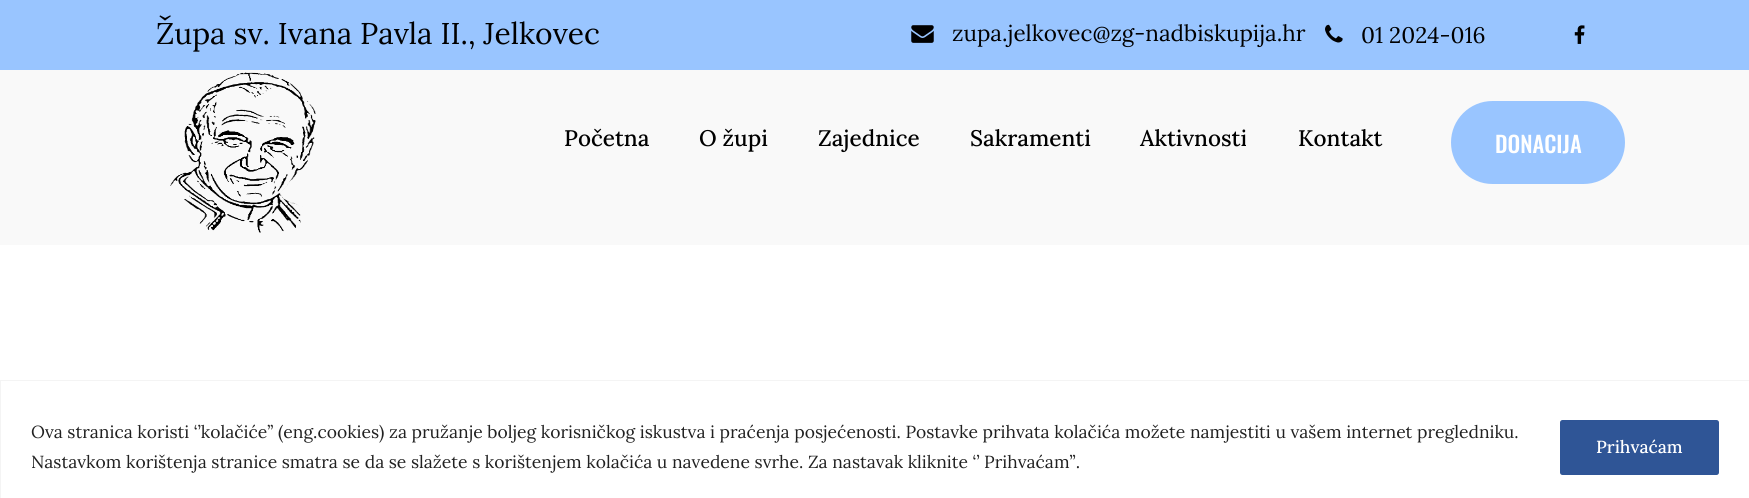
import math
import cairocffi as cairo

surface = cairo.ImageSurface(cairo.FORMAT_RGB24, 1749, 498)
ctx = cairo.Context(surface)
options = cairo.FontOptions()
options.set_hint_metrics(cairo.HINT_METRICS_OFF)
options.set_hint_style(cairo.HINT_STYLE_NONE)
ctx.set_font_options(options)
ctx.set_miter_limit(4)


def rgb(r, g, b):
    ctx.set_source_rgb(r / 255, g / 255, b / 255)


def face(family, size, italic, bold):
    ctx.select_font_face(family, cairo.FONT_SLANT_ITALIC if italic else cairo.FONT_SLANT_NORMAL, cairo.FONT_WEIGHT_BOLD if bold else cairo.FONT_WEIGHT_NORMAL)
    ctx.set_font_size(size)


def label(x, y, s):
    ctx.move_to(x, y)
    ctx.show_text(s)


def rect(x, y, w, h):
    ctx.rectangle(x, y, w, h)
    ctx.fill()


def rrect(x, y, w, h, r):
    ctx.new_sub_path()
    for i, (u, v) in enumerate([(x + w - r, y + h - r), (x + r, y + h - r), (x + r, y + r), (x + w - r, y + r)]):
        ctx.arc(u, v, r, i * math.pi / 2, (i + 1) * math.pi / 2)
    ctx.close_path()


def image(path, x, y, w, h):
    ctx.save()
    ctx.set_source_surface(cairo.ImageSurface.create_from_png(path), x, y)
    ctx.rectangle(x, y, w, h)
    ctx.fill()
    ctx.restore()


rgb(255, 255, 255)
ctx.paint()
rgb(153, 197, 255)
rect(0, 0, 1749, 70)
face('Lora', 30, 0, 0)
rgb(0, 0, 0)
label(156, 44, 'Župa sv. Ivana Pavla II., Jelkovec')
image('image0.png', 911, 25, 23, 18)
face('Lora', 22.5, 0, 0)
label(952, 41, 'zupa.jelkovec@zg-nadbiskupija.hr')
image('image1.png', 1325, 24, 18, 19)
label(1361, 43, '01 2024-016')
image('image2.png', 1574, 25, 11, 19)
rgb(249, 249, 249)
rect(0, 70, 1749, 175)
image('image3.png', 170, 72, 146, 161)
face('Lora Medium', 22.5, 0, 0)
rgb(0, 0, 0)
label(564, 146, 'Početna')
label(699, 146, 'O župi')
label(818, 146, 'Zajednice')
label(970, 146, 'Sakramenti')
label(1140, 146, 'Aktivnosti')
label(1298, 146, 'Kontakt')
rgb(153, 197, 255)
rrect(1451, 101, 174, 83, 41.5)
ctx.fill()
face('Oswald Medium', 22.5, 0, 0)
rgb(255, 255, 255)
label(1495, 153, 'DONACIJA')
ctx.rectangle(0.5, 380.5, 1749, 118)
rgb(244, 244, 244)
ctx.set_line_width(1)
ctx.stroke()
face('Lora', 17.5, 0, 0)
rgb(33, 33, 33)
label(31, 438, 'Ova stranica koristi ‘’kolačiće’’ (eng.cookies) za pružanje boljeg korisničkog iskustva i praćenja posjećenosti. Postavke prihvata kolačića možete namjestiti u vašem internet pregledniku.')
label(31, 468, 'Nastavkom korištenja stranice smatra se da se slažete s korištenjem kolačića u navedene svrhe. Za nastavak kliknite ‘’ Prihvaćam’’.')
rgb(47, 85, 150)
rrect(1561.5, 421.5, 156, 52, 1)
ctx.fill_preserve()
ctx.set_line_width(3)
ctx.stroke()
face('Lora Medium', 17.5, 0, 0)
rgb(255, 255, 255)
label(1596, 453, 'Prihvaćam')
surface.write_to_png('render.png')
